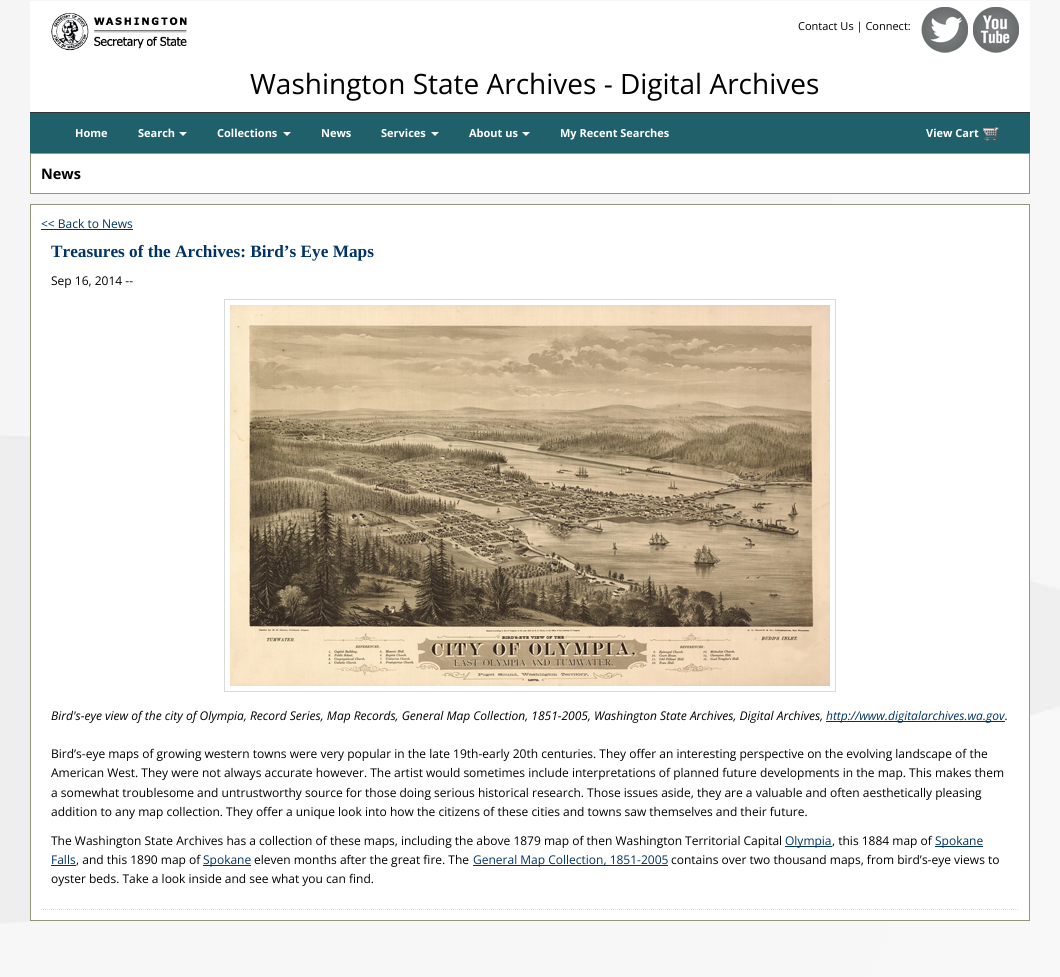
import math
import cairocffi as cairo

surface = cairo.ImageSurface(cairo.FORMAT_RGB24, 1060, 977)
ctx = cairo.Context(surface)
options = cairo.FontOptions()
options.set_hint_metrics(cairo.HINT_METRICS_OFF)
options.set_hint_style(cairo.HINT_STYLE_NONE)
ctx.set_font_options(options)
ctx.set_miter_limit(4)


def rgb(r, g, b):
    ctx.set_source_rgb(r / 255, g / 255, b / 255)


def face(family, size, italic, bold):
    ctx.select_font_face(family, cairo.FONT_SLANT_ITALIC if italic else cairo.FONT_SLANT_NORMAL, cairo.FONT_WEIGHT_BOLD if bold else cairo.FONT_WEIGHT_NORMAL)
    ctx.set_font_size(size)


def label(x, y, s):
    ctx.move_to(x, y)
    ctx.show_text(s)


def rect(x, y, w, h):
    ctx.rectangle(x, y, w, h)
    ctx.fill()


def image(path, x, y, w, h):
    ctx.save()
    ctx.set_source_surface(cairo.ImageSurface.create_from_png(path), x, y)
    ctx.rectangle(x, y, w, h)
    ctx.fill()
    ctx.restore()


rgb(255, 255, 255)
ctx.paint()
image('image0.png', 0, 0, 1060, 977)
rgb(255, 255, 255)
rect(30, 1, 1000, 111)
image('image1.png', 51, 13, 136, 38)
face('Open Sans', 11, 0, 0)
rgb(0, 0, 0)
label(798, 30, 'Contact Us | Connect:')
image('image2.png', 921, 7, 47, 46)
image('image3.png', 973, 7, 46, 46)
rgb(51, 51, 51)
rect(30, 112, 1000, 1)
face('Open Sans', 28, 0, 0)
rgb(0, 0, 0)
label(250, 94, 'Washington State Archives - Digital Archives')
rgb(32, 96, 107)
rect(30, 113, 1000, 40)
face('Open Sans', 11, 0, 1)
rgb(255, 255, 255)
label(75, 137, 'Home')
label(138, 137, 'Search')
ctx.new_path()
ctx.move_to(179, 132)
ctx.line_to(187, 132)
ctx.line_to(183, 136)
ctx.close_path()
ctx.fill()
label(217, 137, 'Collections')
ctx.new_path()
ctx.move_to(283, 132)
ctx.line_to(291, 132)
ctx.line_to(287, 136)
ctx.close_path()
ctx.fill()
label(321, 137, 'News')
label(381, 137, 'Services')
ctx.new_path()
ctx.move_to(431, 132)
ctx.line_to(439, 132)
ctx.line_to(435, 136)
ctx.close_path()
ctx.fill()
label(469, 137, 'About us')
ctx.new_path()
ctx.move_to(522, 132)
ctx.line_to(530, 132)
ctx.line_to(526, 136)
ctx.close_path()
ctx.fill()
label(560, 137, 'My Recent Searches')
label(926, 137, 'View Cart')
image('image4.png', 983, 127, 16, 14)
ctx.rectangle(30.5, 153.5, 999, 40)
ctx.fill_preserve()
rgb(149, 149, 124)
ctx.set_line_width(1)
ctx.stroke()
face('Open Sans', 14.5, 0, 1)
rgb(0, 0, 0)
label(41, 179, 'News')
rgb(255, 255, 255)
ctx.rectangle(30.5, 204.5, 999, 716)
ctx.fill_preserve()
rgb(149, 149, 124)
ctx.stroke()
face('Open Sans', 12, 0, 0)
rgb(0, 51, 102)
label(41, 228, '<< Back to News')
rect(41, 229, 92, 1)
ctx.new_path()
ctx.move_to(41, 909.5)
ctx.line_to(1019, 909.5)
rgb(219, 219, 219)
ctx.set_dash([1, 1])
ctx.stroke()
face('Liberation Serif', 17.25, 0, 1)
rgb(0, 51, 102)
label(51, 257, 'Treasures of the Archives: Bird’s Eye Maps')
face('Open Sans', 12, 0, 0)
rgb(0, 0, 0)
label(51, 285, 'Sep 16, 2014 --')
ctx.rectangle(224.5, 299.5, 611, 392)
rgb(218, 218, 218)
ctx.set_dash([])
ctx.stroke()
image('image5.png', 230, 305, 600, 381)
face('Open Sans', 12, 1, 0)
rgb(0, 0, 0)
label(51, 720, 'Bird\'s-eye view of the city of Olympia, Record Series, Map Records, General Map Collection, 1851-2005, Washington State Archives, Digital Archives,')
rgb(0, 51, 102)
rect(826, 721, 179, 1)
label(826, 720, 'http://www.digitalarchives.wa.gov')
rgb(0, 0, 0)
label(1005, 720, '.')
face('Open Sans', 12, 0, 0)
label(51, 758, 'Bird’s-eye maps of growing western towns were very popular in the late 19th-early 20th centuries. They offer an interesting perspective on the evolving landscape of the')
label(51, 777, 'American West. They were not always accurate however. The artist would sometimes include interpretations of planned future developments in the map. This makes them')
label(51, 797, 'a somewhat troublesome and untrustworthy source for those doing serious historical research. Those issues aside, they are a valuable and often aesthetically pleasing')
label(51, 816, 'addition to any map collection. They offer a unique look into how the citizens of these cities and towns saw themselves and their future.')
label(51, 845, 'The Washington State Archives has a collection of these maps, including the above 1879 map of then Washington Territorial Capital')
rgb(0, 51, 102)
rect(785, 846, 47, 1)
label(785, 845, 'Olympia')
rgb(0, 0, 0)
label(832, 845, ', this 1884 map of')
rgb(0, 51, 102)
rect(935, 846, 48, 1)
label(935, 845, 'Spokane')
label(51, 864, 'Falls')
rect(51, 865, 25, 1)
rgb(0, 0, 0)
label(76, 864, ', and this 1890 map of')
rgb(0, 51, 102)
rect(203, 865, 48, 1)
label(203, 864, 'Spokane')
rgb(0, 0, 0)
label(254, 864, 'eleven months after the great fire. The')
rgb(0, 51, 102)
rect(473, 865, 195, 1)
label(473, 864, 'General Map Collection, 1851-2005')
rgb(0, 0, 0)
label(671, 864, 'contains over two thousand maps, from bird’s-eye views to')
label(51, 883, 'oyster beds. Take a look inside and see what you can find.')
surface.write_to_png('render.png')
